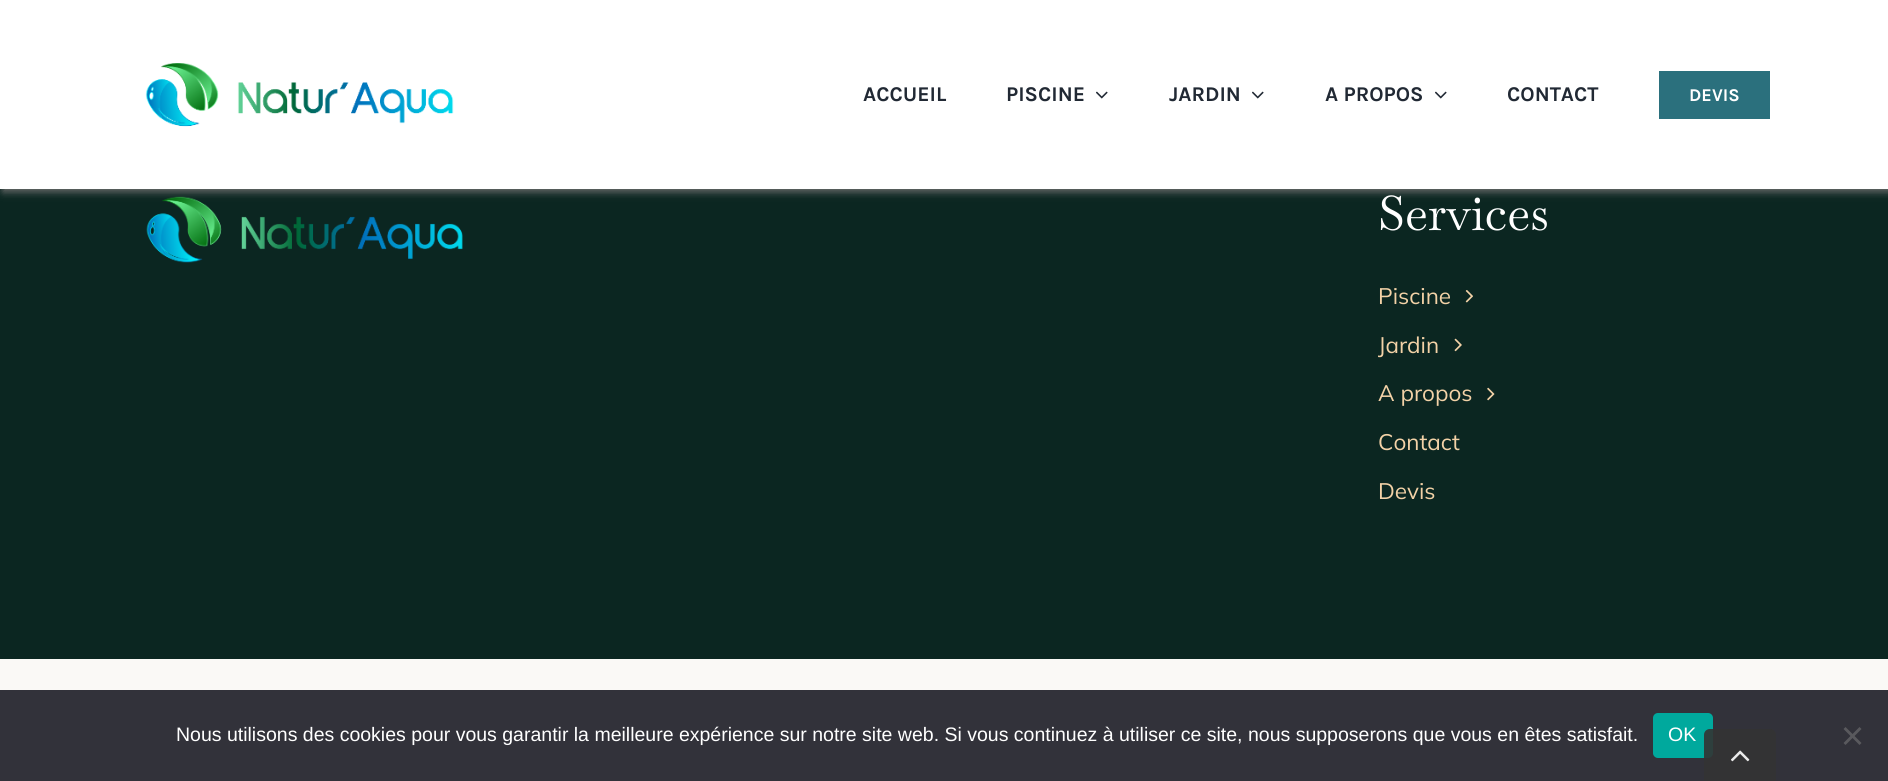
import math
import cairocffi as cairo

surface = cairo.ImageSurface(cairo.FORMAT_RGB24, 1888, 781)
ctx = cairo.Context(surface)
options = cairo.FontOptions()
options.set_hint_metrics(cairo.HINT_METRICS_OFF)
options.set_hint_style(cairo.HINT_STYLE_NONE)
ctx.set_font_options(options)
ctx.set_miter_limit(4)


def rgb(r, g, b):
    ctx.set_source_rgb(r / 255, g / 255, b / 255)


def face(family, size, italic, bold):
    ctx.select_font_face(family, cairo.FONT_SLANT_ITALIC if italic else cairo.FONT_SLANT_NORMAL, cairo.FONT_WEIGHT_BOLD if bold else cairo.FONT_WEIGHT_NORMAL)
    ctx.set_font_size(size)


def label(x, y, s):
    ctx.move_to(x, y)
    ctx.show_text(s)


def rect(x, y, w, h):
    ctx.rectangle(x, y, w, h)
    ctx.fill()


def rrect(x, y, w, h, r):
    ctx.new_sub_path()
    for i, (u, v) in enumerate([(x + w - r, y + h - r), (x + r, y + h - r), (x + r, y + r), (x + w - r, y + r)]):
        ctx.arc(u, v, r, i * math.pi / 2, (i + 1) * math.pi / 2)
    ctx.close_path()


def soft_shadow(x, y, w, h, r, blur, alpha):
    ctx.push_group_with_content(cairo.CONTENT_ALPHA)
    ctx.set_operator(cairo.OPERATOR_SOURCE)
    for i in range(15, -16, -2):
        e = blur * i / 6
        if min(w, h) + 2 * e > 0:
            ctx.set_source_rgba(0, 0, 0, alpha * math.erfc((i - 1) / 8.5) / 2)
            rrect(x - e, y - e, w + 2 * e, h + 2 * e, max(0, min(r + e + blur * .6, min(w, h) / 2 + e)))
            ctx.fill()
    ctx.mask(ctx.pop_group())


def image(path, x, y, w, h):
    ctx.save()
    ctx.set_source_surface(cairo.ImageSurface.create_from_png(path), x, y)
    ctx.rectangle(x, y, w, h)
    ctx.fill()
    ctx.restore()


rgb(11, 38, 33)
ctx.paint()
image('image2.png', 146, 196, 317, 67)
rgb(109, 109, 109)
soft_shadow(3, 3, 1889, 189, 0, 4, 1)
rgb(255, 255, 255)
rect(0, 0, 1888, 189)
image('image0.png', 145, 63, 309, 64)
face('Karla', 21, 0, 1)
rgb(33, 41, 52)
label(863, 101, 'ACCUEIL')
label(1006, 101, 'PISCINE')
image('image1.png', 1096, 91, 12, 8)
label(1169, 101, 'JARDIN')
image('image1.png', 1252, 91, 12, 8)
label(1325, 101, 'A PROPOS')
image('image1.png', 1435, 91, 12, 8)
label(1507, 101, 'CONTACT')
rgb(43, 112, 125)
rect(1659, 71, 111, 48)
face('Karla', 18, 0, 1)
rgb(255, 255, 255)
label(1689, 101, 'DEVIS')
face('Baskervville', 48, 0, 0)
label(1378, 230, 'Services')
face('Mulish', 22.5, 0, 0)
rgb(243, 210, 167)
label(1378, 304, 'Piscine')
image('image3.png', 1465, 290, 8, 13)
label(1378, 353, 'Jardin')
image('image4.png', 1454, 338, 8, 14)
label(1378, 401, 'A propos')
image('image5.png', 1487, 387, 8, 14)
label(1378, 450, 'Contact')
label(1378, 499, 'Devis')
rgb(250, 249, 246)
rect(0, 659, 1888, 31)
rgb(50, 50, 58)
rect(0, 690, 1888, 91)
face('Liberation Sans', 19.5, 0, 0)
rgb(255, 255, 255)
label(176, 741, 'Nous utilisons des cookies pour vous garantir la meilleure expérience sur notre site web. Si vous continuez à utiliser ce site, nous supposerons que vous en êtes satisfait.')
rgb(0, 169, 157)
rrect(1653, 713, 60, 45, 5)
ctx.fill()
rgb(255, 255, 255)
label(1668, 741, 'OK')
rgb(89, 89, 93)
ctx.new_path()
ctx.move_to(1859.5, 727)
ctx.line_to(1861.5, 729)
ctx.line_to(1845.5, 745)
ctx.line_to(1843.5, 743)
ctx.close_path()
ctx.fill()
ctx.new_path()
ctx.move_to(1843.5, 729)
ctx.line_to(1845.5, 727)
ctx.line_to(1861.5, 743)
ctx.line_to(1859.5, 745)
ctx.close_path()
ctx.fill()
ctx.set_source_rgba(0.2, 0.2, 0.2, 0.9)
ctx.new_path()
ctx.move_to(1710, 729)
ctx.line_to(1770, 729)
ctx.curve_to(1773.5, 729, 1776, 731.5, 1776, 735)
ctx.line_to(1776, 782)
ctx.line_to(1704, 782)
ctx.line_to(1704, 735)
ctx.curve_to(1704, 731.5, 1706.5, 729, 1710, 729)
ctx.close_path()
ctx.fill()
image('image6.png', 1731, 750, 19, 12)
surface.write_to_png('render.png')
